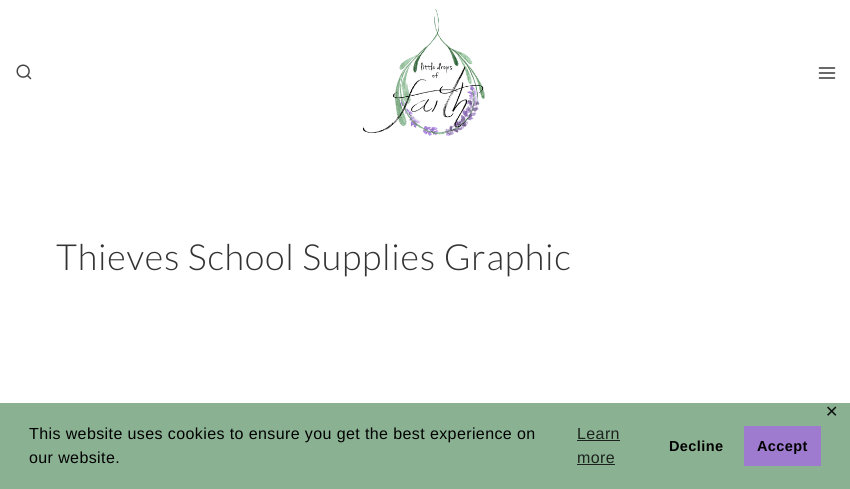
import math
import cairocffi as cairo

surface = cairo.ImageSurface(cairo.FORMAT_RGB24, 850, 489)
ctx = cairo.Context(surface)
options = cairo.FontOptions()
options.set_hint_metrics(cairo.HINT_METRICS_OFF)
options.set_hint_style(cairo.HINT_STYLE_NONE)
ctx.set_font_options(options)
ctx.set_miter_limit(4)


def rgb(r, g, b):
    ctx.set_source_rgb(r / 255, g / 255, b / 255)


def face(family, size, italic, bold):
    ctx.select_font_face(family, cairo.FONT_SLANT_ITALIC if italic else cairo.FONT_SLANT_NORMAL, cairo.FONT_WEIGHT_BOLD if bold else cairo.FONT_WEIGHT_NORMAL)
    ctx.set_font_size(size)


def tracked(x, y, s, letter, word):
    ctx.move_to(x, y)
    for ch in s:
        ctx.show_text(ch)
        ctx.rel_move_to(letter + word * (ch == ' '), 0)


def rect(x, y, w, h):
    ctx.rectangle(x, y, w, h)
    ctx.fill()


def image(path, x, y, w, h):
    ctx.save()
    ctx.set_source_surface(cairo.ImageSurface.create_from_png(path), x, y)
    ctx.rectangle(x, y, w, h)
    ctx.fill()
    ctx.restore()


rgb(255, 255, 255)
ctx.paint()
image('image0.png', 16, 64, 16, 16)
image('image1.png', 362, 9, 123, 128)
image('image2.png', 818, 67, 18, 12)
face('Lato Light', 36, 0, 0)
rgb(51, 51, 51)
tracked(56, 270, 'Thieves School Supplies Graphic', 0.75, 0)
rgb(138, 177, 146)
rect(0, 403, 850, 86)
face('DejaVu Sans', 16, 0, 0)
rgb(14, 18, 15)
tracked(825, 417, '✕', 0.4, 0)
face('Liberation Sans', 16, 0, 0)
rgb(0, 0, 0)
tracked(29, 439, 'This website uses cookies to ensure you get the best experience on', 0.4, 0)
tracked(29, 463, 'our website.', 0.4, 0)
rgb(28, 35, 29)
tracked(577, 439, 'Learn', 0.4, 0)
rect(577, 440, 43, 1)
tracked(577, 463, 'more', 0.4, 0)
rect(577, 464, 38, 1)
face('Liberation Sans', 14.5, 0, 1)
rgb(0, 0, 0)
tracked(669, 451, 'Decline', 0.4, 0)
rgb(158, 123, 207)
rect(744, 426, 77, 40)
rgb(0, 0, 0)
tracked(757, 451, 'Accept', 0.4, 0)
surface.write_to_png('render.png')
